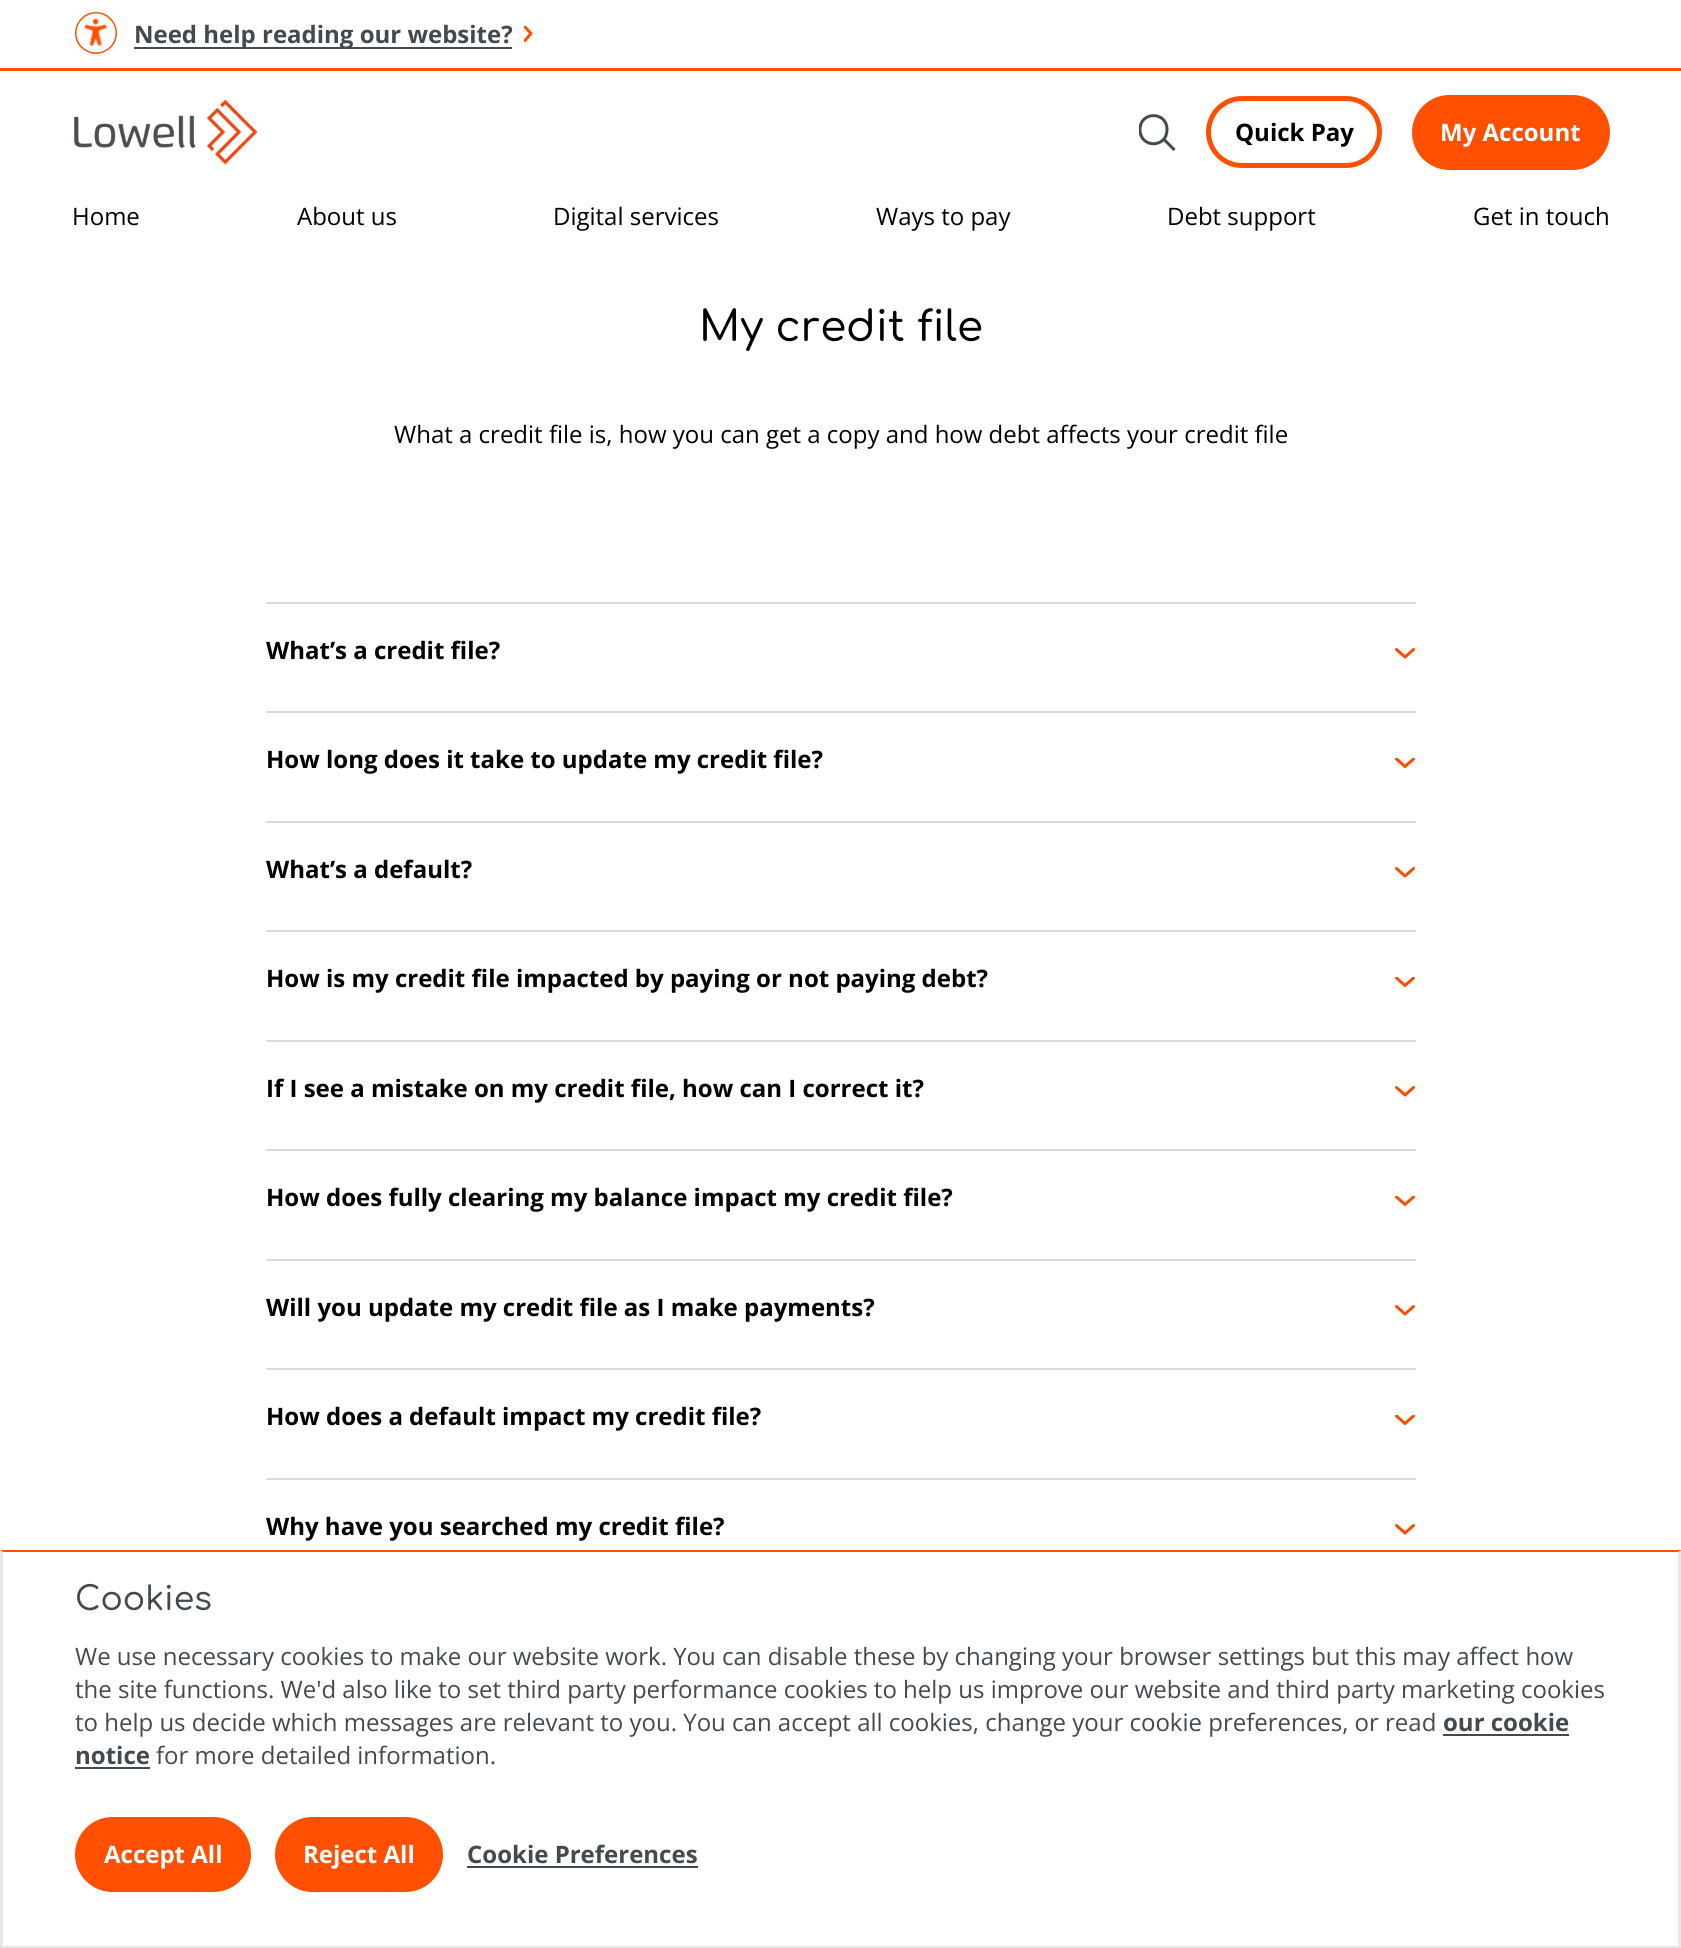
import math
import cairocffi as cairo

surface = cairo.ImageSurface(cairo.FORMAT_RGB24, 1681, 1948)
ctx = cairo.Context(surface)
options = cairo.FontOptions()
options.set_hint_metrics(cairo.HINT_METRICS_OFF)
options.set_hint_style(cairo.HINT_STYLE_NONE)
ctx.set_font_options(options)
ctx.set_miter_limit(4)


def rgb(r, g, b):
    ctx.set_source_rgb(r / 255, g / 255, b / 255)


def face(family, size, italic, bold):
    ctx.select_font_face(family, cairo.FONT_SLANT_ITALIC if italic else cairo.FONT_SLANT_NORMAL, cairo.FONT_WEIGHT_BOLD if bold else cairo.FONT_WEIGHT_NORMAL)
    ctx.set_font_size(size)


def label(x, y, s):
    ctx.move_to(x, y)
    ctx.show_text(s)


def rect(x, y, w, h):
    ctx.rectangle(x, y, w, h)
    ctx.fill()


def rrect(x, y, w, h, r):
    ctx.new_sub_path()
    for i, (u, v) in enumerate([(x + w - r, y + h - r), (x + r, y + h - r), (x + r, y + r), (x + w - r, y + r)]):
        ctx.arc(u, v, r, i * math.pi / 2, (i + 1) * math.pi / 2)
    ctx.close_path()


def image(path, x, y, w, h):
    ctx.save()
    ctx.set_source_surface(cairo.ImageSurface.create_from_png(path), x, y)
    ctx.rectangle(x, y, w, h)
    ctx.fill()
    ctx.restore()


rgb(255, 255, 255)
ctx.paint()
image('image0.png', 75, 12, 42, 42)
rgb(67, 74, 79)
rect(134, 47, 378, 2)
face('Open Sans', 24, 0, 1)
label(134, 43, 'Need help reading our website?')
ctx.save()
ctx.rectangle(524, 26, 9, 16)
ctx.clip()
ctx.new_path()
ctx.move_to(525, 27)
ctx.line_to(531, 33.5)
ctx.line_to(525, 40.5)
rgb(254, 80, 0)
ctx.set_line_width(3)
ctx.set_line_cap(cairo.LINE_CAP_ROUND)
ctx.set_line_join(cairo.LINE_JOIN_ROUND)
ctx.stroke()
ctx.restore()
rgb(254, 80, 0)
rect(0, 68, 1681, 3)
image('image1.png', 74, 99, 184, 66)
ctx.new_path()
ctx.move_to(1163, 138.5)
ctx.line_to(1174.5, 150)
rgb(67, 74, 79)
ctx.set_line_width(3)
ctx.stroke()
ctx.save()
ctx.rectangle(1139, 114, 37, 38)
ctx.clip()
ctx.new_path()
ctx.move_to(1167, 129.5)
ctx.curve_to(1167, 148.5, 1140, 148.5, 1140, 129.5)
ctx.curve_to(1140, 111, 1167, 111, 1167, 129.5)
ctx.close_path()
ctx.stroke()
ctx.restore()
rrect(1208.5, 98.5, 171, 67, 33.5)
rgb(254, 80, 0)
ctx.set_line_width(5)
ctx.stroke()
rgb(0, 0, 0)
label(1235, 141, 'Quick Pay')
rgb(254, 80, 0)
rrect(1414.5, 97.5, 193, 70, 35)
ctx.fill_preserve()
ctx.stroke()
rgb(255, 255, 255)
label(1440, 141, 'My Account')
face('Open Sans', 24, 0, 0)
rgb(0, 0, 0)
label(72, 225, 'Home')
label(297, 225, 'About us')
label(553, 225, 'Digital services')
label(876, 225, 'Ways to pay')
label(1167, 225, 'Debt support')
label(1473, 225, 'Get in touch')
face('Comfortaa Medium', 42, 0, 0)
label(699, 341, 'My credit file')
face('Open Sans', 24, 0, 0)
label(394, 443, 'What a credit file is, how you can get a copy and how debt affects your credit file')
rgb(217, 220, 219)
rect(266, 602, 1150, 2)
face('Open Sans', 24, 0, 1)
rgb(0, 0, 0)
label(266, 659, 'What’s a credit file?')
ctx.new_path()
ctx.move_to(1413.5, 649.5)
ctx.line_to(1405, 657)
ctx.line_to(1396.5, 649.5)
rgb(245, 78, 0)
ctx.set_line_width(3)
ctx.set_line_cap(cairo.LINE_CAP_ROUND)
ctx.set_line_join(cairo.LINE_JOIN_ROUND)
ctx.stroke()
rgb(217, 220, 219)
rect(266, 711, 1150, 2)
rgb(0, 0, 0)
label(266, 768, 'How long does it take to update my credit file?')
ctx.save()
ctx.rectangle(1395, 758, 21, 10)
ctx.clip()
ctx.new_path()
ctx.move_to(1413.5, 759)
ctx.line_to(1405, 766.5)
ctx.line_to(1396.5, 759)
rgb(245, 78, 0)
ctx.stroke()
ctx.restore()
rgb(217, 220, 219)
rect(266, 821, 1150, 2)
rgb(0, 0, 0)
label(266, 878, 'What’s a default?')
ctx.new_path()
ctx.move_to(1413.5, 868.5)
ctx.line_to(1405, 876)
ctx.line_to(1396.5, 868.5)
rgb(245, 78, 0)
ctx.stroke()
rgb(217, 220, 219)
rect(266, 930, 1150, 2)
rgb(0, 0, 0)
label(266, 987, 'How is my credit file impacted by paying or not paying debt?')
ctx.save()
ctx.rectangle(1395, 977, 21, 10)
ctx.clip()
ctx.new_path()
ctx.move_to(1413.5, 978)
ctx.line_to(1405, 985.5)
ctx.line_to(1396.5, 978)
rgb(245, 78, 0)
ctx.stroke()
ctx.restore()
rgb(217, 220, 219)
rect(266, 1040, 1150, 2)
rgb(0, 0, 0)
label(266, 1097, 'If I see a mistake on my credit file, how can I correct it?')
ctx.new_path()
ctx.move_to(1413.5, 1087.5)
ctx.line_to(1405, 1095)
ctx.line_to(1396.5, 1087.5)
rgb(245, 78, 0)
ctx.stroke()
rgb(217, 220, 219)
rect(266, 1149, 1150, 2)
rgb(0, 0, 0)
label(266, 1206, 'How does fully clearing my balance impact my credit file?')
ctx.save()
ctx.rectangle(1395, 1196, 21, 10)
ctx.clip()
ctx.new_path()
ctx.move_to(1413.5, 1197)
ctx.line_to(1405, 1204.5)
ctx.line_to(1396.5, 1197)
rgb(245, 78, 0)
ctx.stroke()
ctx.restore()
rgb(217, 220, 219)
rect(266, 1259, 1150, 2)
rgb(0, 0, 0)
label(266, 1316, 'Will you update my credit file as I make payments?')
ctx.new_path()
ctx.move_to(1413.5, 1306.5)
ctx.line_to(1405, 1314)
ctx.line_to(1396.5, 1306.5)
rgb(245, 78, 0)
ctx.stroke()
rgb(217, 220, 219)
rect(266, 1368, 1150, 2)
rgb(0, 0, 0)
label(266, 1425, 'How does a default impact my credit file?')
ctx.save()
ctx.rectangle(1395, 1415, 21, 10)
ctx.clip()
ctx.new_path()
ctx.move_to(1413.5, 1416)
ctx.line_to(1405, 1423.5)
ctx.line_to(1396.5, 1416)
rgb(245, 78, 0)
ctx.stroke()
ctx.restore()
rgb(217, 220, 219)
rect(266, 1478, 1150, 2)
rgb(0, 0, 0)
label(266, 1535, 'Why have you searched my credit file?')
ctx.new_path()
ctx.move_to(1413.5, 1525.5)
ctx.line_to(1405, 1533)
ctx.line_to(1396.5, 1525.5)
rgb(245, 78, 0)
ctx.stroke()
rgb(254, 80, 0)
ctx.new_path()
ctx.move_to(0, 1550)
ctx.line_to(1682, 1550)
ctx.line_to(1678, 1552)
ctx.line_to(3, 1552)
ctx.close_path()
ctx.fill()
rgb(229, 231, 235)
ctx.new_path()
ctx.move_to(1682, 1550)
ctx.line_to(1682, 1948)
ctx.line_to(1678, 1946)
ctx.line_to(1678, 1552)
ctx.close_path()
ctx.fill()
rect(0, 1946, 1681, 2)
ctx.new_path()
ctx.move_to(0, 1948)
ctx.line_to(0, 1550)
ctx.line_to(3, 1552)
ctx.line_to(3, 1946)
ctx.close_path()
ctx.fill()
face('Comfortaa Medium', 33, 0, 0)
rgb(67, 74, 79)
label(75, 1610, 'Cookies')
face('Open Sans', 24, 0, 0)
label(75, 1665, 'We use necessary cookies to make our website work. You can disable these by changing your browser settings but this may affect how')
label(75, 1698, 'the site functions. We\'d also like to set third party performance cookies to help us improve our website and third party marketing cookies')
label(75, 1731, 'to help us decide which messages are relevant to you. You can accept all cookies, change your cookie preferences, or read')
face('Open Sans', 24, 0, 1)
label(1443, 1731, 'our cookie')
rect(1443, 1734, 126, 2)
label(75, 1764, 'notice')
rect(75, 1767, 75, 2)
face('Open Sans', 24, 0, 0)
label(156, 1764, 'for more detailed information.')
rgb(254, 80, 0)
rrect(77.5, 1819.5, 171, 70, 35)
ctx.fill_preserve()
ctx.set_line_width(5)
ctx.set_line_cap(cairo.LINE_CAP_BUTT)
ctx.set_line_join(cairo.LINE_JOIN_MITER)
ctx.stroke()
face('Open Sans', 24, 0, 1)
rgb(255, 255, 255)
label(104, 1863, 'Accept All')
rgb(254, 80, 0)
rrect(277.5, 1819.5, 163, 70, 35)
ctx.fill_preserve()
ctx.stroke()
rgb(255, 255, 255)
label(303, 1863, 'Reject All')
rgb(67, 74, 79)
label(467, 1863, 'Cookie Preferences')
rect(467, 1866, 231, 2)
surface.write_to_png('render.png')
